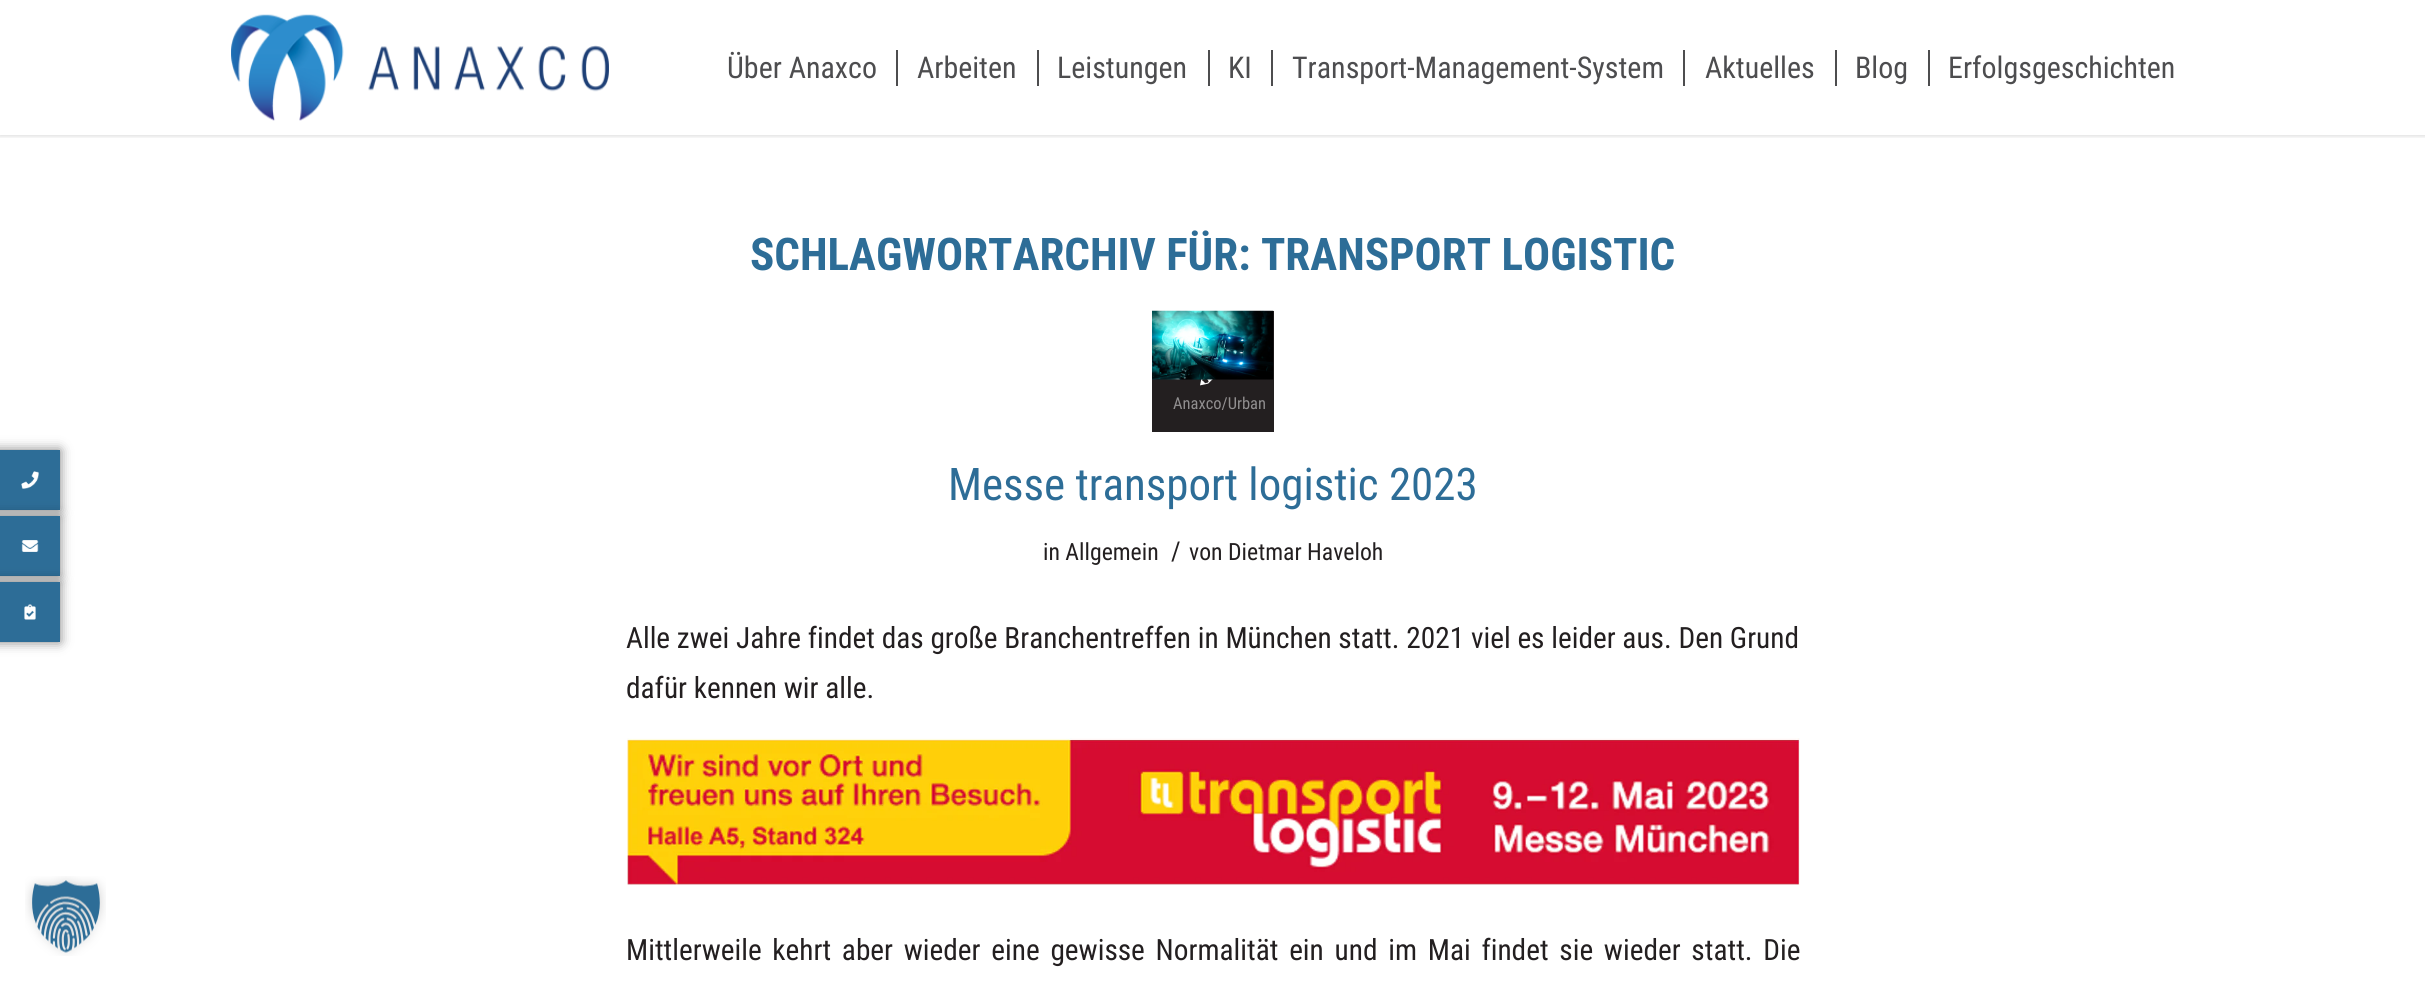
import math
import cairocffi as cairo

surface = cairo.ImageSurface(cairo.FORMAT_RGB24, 2425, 982)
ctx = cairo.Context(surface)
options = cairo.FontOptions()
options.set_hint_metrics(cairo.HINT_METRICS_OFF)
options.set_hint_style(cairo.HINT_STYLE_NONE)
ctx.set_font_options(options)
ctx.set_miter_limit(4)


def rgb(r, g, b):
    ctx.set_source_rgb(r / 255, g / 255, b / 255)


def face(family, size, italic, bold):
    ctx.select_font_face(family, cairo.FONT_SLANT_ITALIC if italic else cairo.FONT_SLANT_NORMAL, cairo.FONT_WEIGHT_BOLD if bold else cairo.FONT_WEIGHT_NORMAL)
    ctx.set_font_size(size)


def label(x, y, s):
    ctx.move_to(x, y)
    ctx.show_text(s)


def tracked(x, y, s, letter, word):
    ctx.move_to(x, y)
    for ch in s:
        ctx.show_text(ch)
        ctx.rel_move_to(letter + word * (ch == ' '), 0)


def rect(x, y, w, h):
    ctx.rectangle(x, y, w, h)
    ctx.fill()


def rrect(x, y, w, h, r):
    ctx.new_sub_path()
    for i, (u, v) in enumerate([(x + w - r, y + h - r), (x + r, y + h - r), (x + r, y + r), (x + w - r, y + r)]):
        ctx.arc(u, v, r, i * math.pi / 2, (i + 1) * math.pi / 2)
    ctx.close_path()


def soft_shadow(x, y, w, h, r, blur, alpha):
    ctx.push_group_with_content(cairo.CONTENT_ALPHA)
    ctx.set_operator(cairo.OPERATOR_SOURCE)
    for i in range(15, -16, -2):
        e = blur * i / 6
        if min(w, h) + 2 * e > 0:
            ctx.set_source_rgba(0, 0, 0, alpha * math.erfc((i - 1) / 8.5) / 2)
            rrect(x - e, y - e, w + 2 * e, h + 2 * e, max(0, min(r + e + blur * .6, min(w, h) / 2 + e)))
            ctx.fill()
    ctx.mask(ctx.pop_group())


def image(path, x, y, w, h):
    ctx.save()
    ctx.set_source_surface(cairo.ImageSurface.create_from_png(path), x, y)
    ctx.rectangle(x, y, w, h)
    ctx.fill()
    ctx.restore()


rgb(255, 255, 255)
ctx.paint()
rgb(0, 0, 0)
soft_shadow(-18, 450, 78, 60, 0, 6, 0.5)
rgb(45, 109, 151)
rect(0, 450, 60, 60)
image('image0.png', 21, 471, 18, 18)
rgb(0, 0, 0)
soft_shadow(-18, 516, 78, 60, 0, 6, 0.5)
rgb(45, 109, 151)
rect(0, 516, 60, 60)
image('image1.png', 21, 540, 18, 12)
rgb(0, 0, 0)
soft_shadow(-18, 582, 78, 60, 0, 6, 0.5)
rgb(45, 109, 151)
rect(0, 582, 60, 60)
image('image2.png', 24, 604, 12, 16)
ctx.save()
ctx.rectangle(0, 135, 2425, 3)
ctx.clip()
rgb(0, 0, 0)
soft_shadow(-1, -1, 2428, 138, 0, 1.5, 0.1)
ctx.restore()
image('image3.png', 231, 14, 378, 107)
face('Roboto Condensed', 30, 0, 0)
rgb(77, 77, 79)
label(727, 78, 'Über Anaxco')
label(917, 78, 'Arbeiten')
rect(896, 50, 2, 36)
label(1057, 78, 'Leistungen')
rect(1037, 50, 2, 36)
label(1228, 78, 'KI')
rect(1208, 50, 2, 36)
label(1292, 78, 'Transport-Management-System')
rect(1271, 50, 2, 36)
label(1705, 78, 'Aktuelles')
rect(1683, 50, 2, 36)
label(1855, 78, 'Blog')
rect(1835, 50, 2, 36)
label(1948, 78, 'Erfolgsgeschichten')
rect(1928, 50, 2, 36)
face('Roboto Condensed', 45, 0, 1)
rgb(45, 109, 151)
label(750, 270, 'SCHLAGWORTARCHIV FÜR: TRANSPORT LOGISTIC')
rgb(35, 31, 32)
rect(1152, 311, 122, 121)
image('image5.png', 1200, 379, 13, 7)
image('image4.png', 1152, 310, 122, 70)
face('Roboto Condensed', 16.5, 0, 0)
rgb(145, 143, 144)
label(1173, 409, 'Anaxco/Urban')
face('Roboto Condensed', 45, 0, 0)
rgb(45, 109, 151)
label(948, 500, 'Messe transport logistic 2023')
face('Roboto Condensed', 23.75, 0, 0)
rgb(35, 31, 32)
label(1043, 560, 'in Allgemein')
face('Roboto Condensed', 26, 0, 0)
label(1171, 560, '/')
face('Roboto Condensed', 23.75, 0, 0)
label(1189, 560, 'von Dietmar Haveloh')
face('Roboto Condensed', 29.35, 0, 0)
label(626, 648, 'Alle zwei Jahre findet das große Branchentreffen in München statt. 2021 viel es leider aus. Den Grund')
label(626, 698, 'dafür kennen wir alle.')
image('image6.png', 627, 738, 1173, 147)
tracked(626, 960, 'Mittlerweile kehrt aber wieder eine gewisse Normalität ein und im Mai findet sie wieder statt. Die', 0, 4)
image('image7.png', 25, 876, 81, 80)
surface.write_to_png('render.png')
